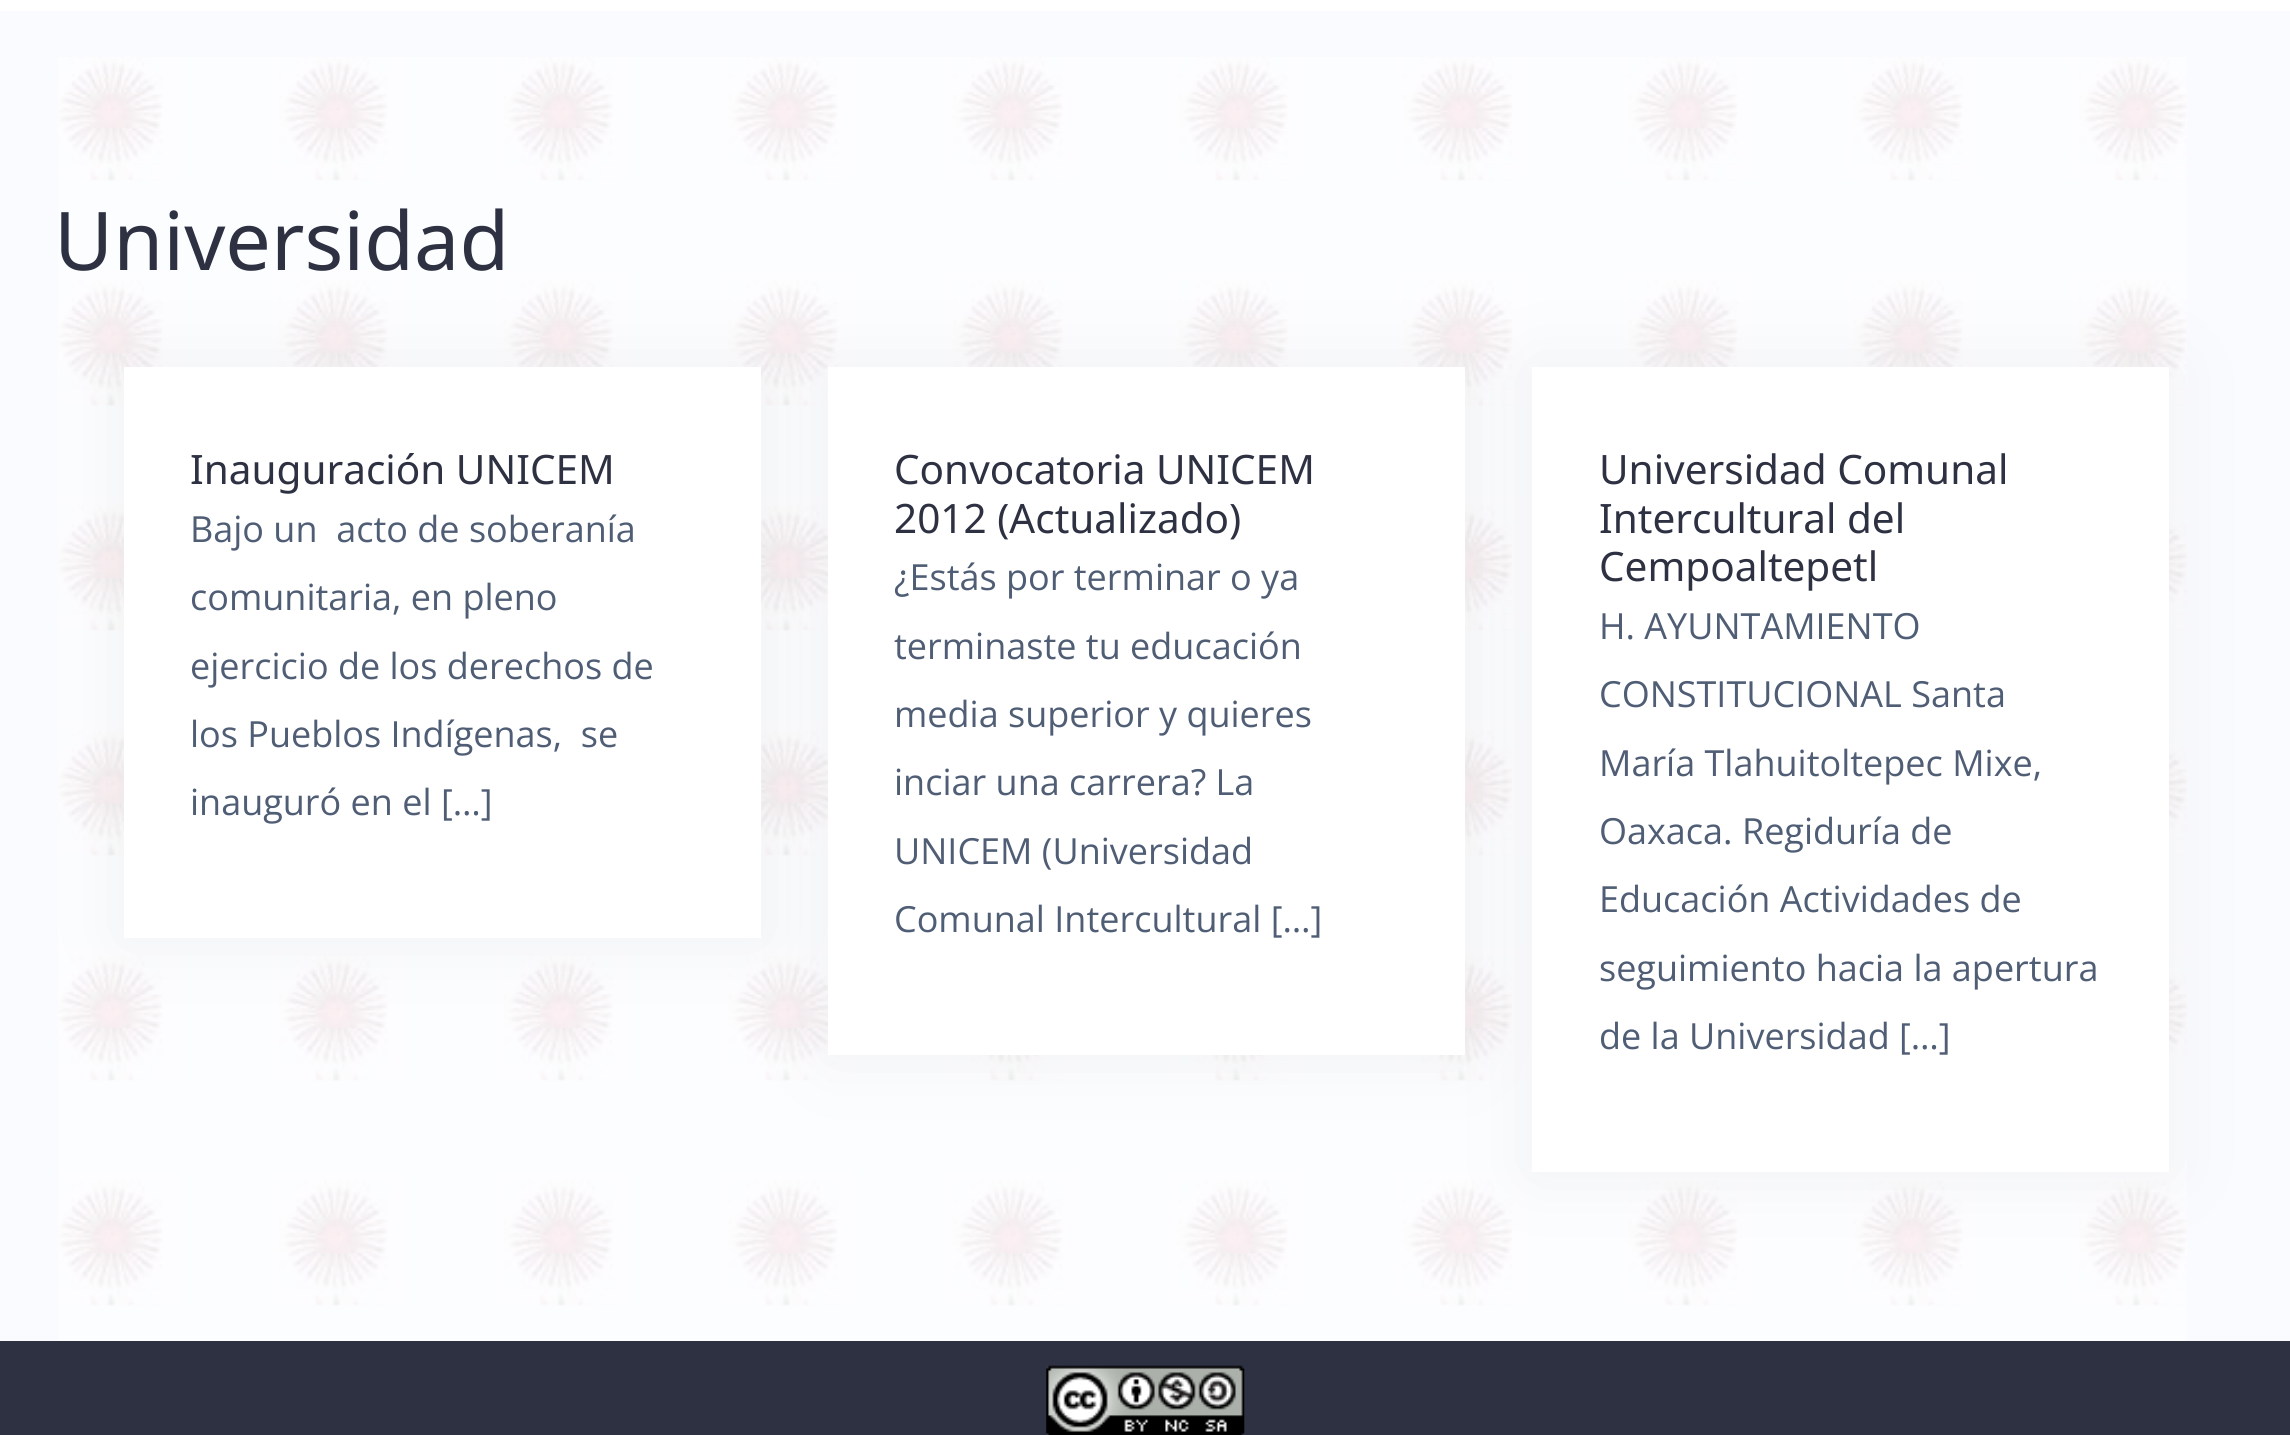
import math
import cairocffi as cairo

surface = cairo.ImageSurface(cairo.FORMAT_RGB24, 2290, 1435)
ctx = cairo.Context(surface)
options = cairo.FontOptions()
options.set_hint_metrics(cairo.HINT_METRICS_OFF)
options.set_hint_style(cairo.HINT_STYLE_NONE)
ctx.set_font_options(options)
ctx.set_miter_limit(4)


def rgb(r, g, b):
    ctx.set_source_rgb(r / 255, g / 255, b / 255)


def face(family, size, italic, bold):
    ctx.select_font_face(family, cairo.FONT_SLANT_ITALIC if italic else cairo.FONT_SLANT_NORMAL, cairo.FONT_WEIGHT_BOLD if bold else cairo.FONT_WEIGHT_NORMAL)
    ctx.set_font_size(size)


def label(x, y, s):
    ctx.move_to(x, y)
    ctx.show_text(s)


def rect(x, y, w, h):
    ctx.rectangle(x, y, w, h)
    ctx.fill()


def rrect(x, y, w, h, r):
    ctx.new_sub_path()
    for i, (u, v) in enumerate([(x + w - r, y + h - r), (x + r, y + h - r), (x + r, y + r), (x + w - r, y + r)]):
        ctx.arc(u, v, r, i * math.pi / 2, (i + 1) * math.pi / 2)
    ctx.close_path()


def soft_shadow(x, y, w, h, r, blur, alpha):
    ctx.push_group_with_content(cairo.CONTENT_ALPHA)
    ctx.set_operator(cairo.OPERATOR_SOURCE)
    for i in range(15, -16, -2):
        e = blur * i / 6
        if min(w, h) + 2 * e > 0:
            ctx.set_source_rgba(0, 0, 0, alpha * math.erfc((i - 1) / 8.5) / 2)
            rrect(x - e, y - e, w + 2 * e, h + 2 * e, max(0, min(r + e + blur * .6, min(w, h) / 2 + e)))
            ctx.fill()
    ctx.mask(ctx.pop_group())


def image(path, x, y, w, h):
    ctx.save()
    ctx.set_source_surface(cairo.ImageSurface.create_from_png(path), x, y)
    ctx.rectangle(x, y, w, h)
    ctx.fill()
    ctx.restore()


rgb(250, 251, 255)
ctx.paint()
image('image0.png', 58, 57, 2129, 1284)
rgb(255, 255, 255)
rect(0, 0, 2290, 11)
face('Noto Sans', 81, 0, 0)
rgb(45, 49, 66)
label(54, 270, 'Universidad')
rgb(122, 122, 122)
soft_shadow(124, 367, 637, 571, 0, 36, 0.1)
rgb(255, 255, 255)
rect(124, 367, 637, 571)
face('Noto Sans', 40.5, 0, 0)
rgb(45, 49, 66)
label(190, 484, 'Inauguración UNICEM')
face('Open Sans', 36, 0, 0)
rgb(79, 93, 117)
label(190, 542, 'Bajo un  acto de soberanía')
label(190, 610, 'comunitaria, en pleno')
label(190, 679, 'ejercicio de los derechos de')
label(190, 747, 'los Pueblos Indígenas,  se')
label(190, 815, 'inauguró en el […]')
rgb(122, 122, 122)
soft_shadow(828, 367, 637, 688, 0, 36, 0.1)
rgb(255, 255, 255)
rect(828, 367, 637, 688)
face('Noto Sans', 40.5, 0, 0)
rgb(45, 49, 66)
label(894, 484, 'Convocatoria UNICEM')
label(894, 533, '2012 (Actualizado)')
face('Open Sans', 36, 0, 0)
rgb(79, 93, 117)
label(894, 590, '¿Estás por terminar o ya')
label(894, 659, 'terminaste tu educación')
label(894, 727, 'media superior y quieres')
label(894, 795, 'inciar una carrera? La')
label(894, 864, 'UNICEM (Universidad')
label(894, 932, 'Comunal Intercultural […]')
rgb(122, 122, 122)
soft_shadow(1532, 367, 637, 805, 0, 36, 0.1)
rgb(255, 255, 255)
rect(1532, 367, 637, 805)
face('Noto Sans', 40.5, 0, 0)
rgb(45, 49, 66)
label(1599, 484, 'Universidad Comunal')
label(1599, 533, 'Intercultural del')
label(1599, 581, 'Cempoaltepetl')
face('Open Sans', 36, 0, 0)
rgb(79, 93, 117)
label(1599, 639, 'H. AYUNTAMIENTO')
label(1599, 707, 'CONSTITUCIONAL Santa')
label(1599, 776, 'María Tlahuitoltepec Mixe,')
label(1599, 844, 'Oaxaca. Regiduría de')
label(1599, 912, 'Educación Actividades de')
label(1599, 981, 'seguimiento hacia la apertura')
label(1599, 1049, 'de la Universidad […]')
rgb(45, 49, 66)
rect(0, 1341, 2290, 94)
image('image1.png', 1046, 1365, 199, 70)
surface.write_to_png('render.png')
